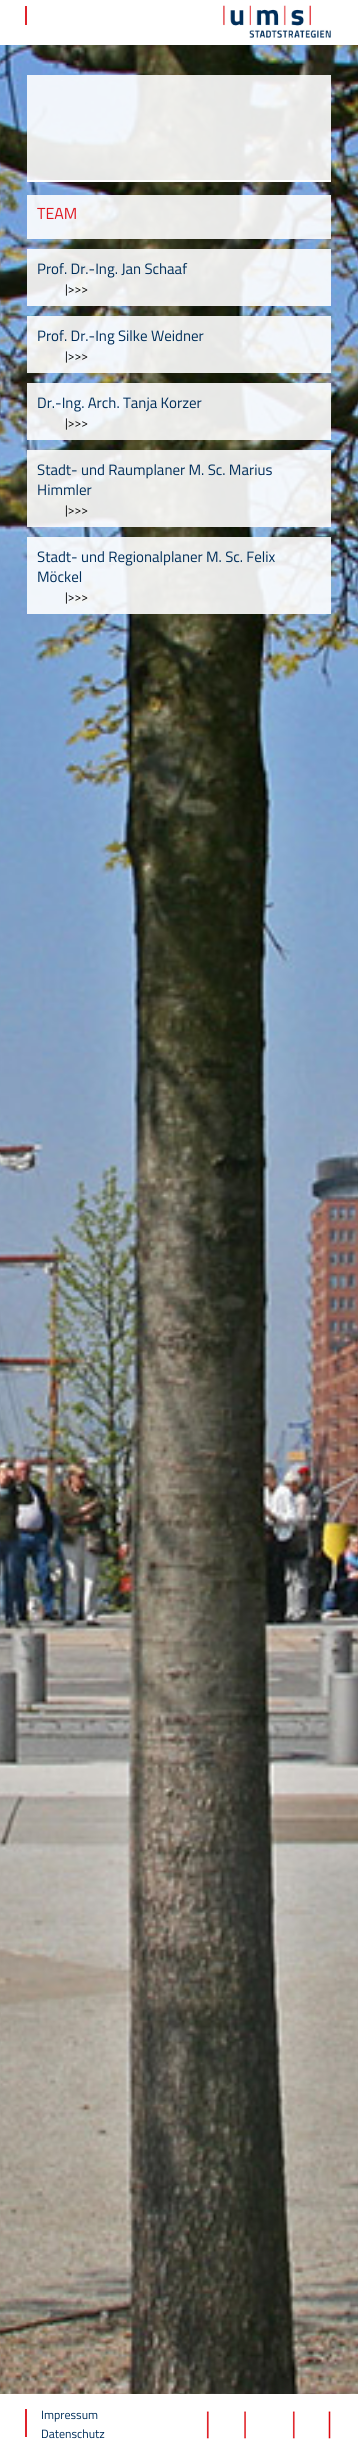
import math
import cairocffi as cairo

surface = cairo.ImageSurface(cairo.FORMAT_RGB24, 358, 2454)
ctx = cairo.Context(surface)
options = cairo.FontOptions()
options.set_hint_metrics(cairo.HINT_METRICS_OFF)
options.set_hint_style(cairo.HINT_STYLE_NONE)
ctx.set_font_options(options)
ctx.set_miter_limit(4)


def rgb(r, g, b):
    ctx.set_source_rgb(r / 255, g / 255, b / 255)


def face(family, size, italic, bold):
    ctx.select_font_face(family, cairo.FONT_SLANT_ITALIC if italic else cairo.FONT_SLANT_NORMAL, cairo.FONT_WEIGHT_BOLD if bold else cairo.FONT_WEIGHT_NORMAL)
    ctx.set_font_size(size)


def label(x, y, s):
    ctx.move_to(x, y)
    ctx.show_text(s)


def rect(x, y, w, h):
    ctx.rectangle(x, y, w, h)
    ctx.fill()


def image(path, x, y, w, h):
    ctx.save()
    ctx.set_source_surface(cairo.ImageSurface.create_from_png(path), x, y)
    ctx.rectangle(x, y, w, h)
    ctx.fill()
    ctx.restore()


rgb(255, 255, 255)
ctx.paint()
image('image0.png', 0, 45, 358, 2349)
rgb(224, 35, 43)
rect(25, 6, 2, 19)
image('image1.png', 223, 5, 108, 33)
ctx.set_source_rgba(1, 1, 1, 0.9)
rect(27, 75, 304, 105)
rgb(255, 255, 255)
rect(27, 180, 304, 2)
ctx.set_source_rgba(1, 1, 1, 0.9)
rect(27, 195, 304, 44)
face('Titillium Web', 16, 0, 0)
rgb(224, 27, 34)
label(37, 219, 'TEAM')
ctx.set_source_rgba(1, 1, 1, 0.9)
rect(27, 249, 304, 57)
face('Titillium Web', 15, 0, 0)
rgb(0, 46, 90)
label(37, 274, 'Prof. Dr.-Ing. Jan Schaaf')
face('Titillium Web', 12, 0, 0)
rgb(0, 0, 0)
label(65, 293, '|>>>')
ctx.set_source_rgba(1, 1, 1, 0.9)
rect(27, 316, 304, 57)
face('Titillium Web', 15, 0, 0)
rgb(0, 46, 90)
label(37, 341, 'Prof. Dr.-Ing Silke Weidner')
face('Titillium Web', 12, 0, 0)
rgb(0, 0, 0)
label(65, 360, '|>>>')
ctx.set_source_rgba(1, 1, 1, 0.9)
rect(27, 383, 304, 57)
face('Titillium Web', 15, 0, 0)
rgb(0, 46, 90)
label(37, 408, 'Dr.-Ing. Arch. Tanja Korzer')
face('Titillium Web', 12, 0, 0)
rgb(0, 0, 0)
label(65, 427, '|>>>')
ctx.set_source_rgba(1, 1, 1, 0.9)
rect(27, 450, 304, 77)
face('Titillium Web', 15, 0, 0)
rgb(0, 46, 90)
label(37, 475, 'Stadt- und Raumplaner M. Sc. Marius')
label(37, 495, 'Himmler')
face('Titillium Web', 12, 0, 0)
rgb(0, 0, 0)
label(65, 514, '|>>>')
ctx.set_source_rgba(1, 1, 1, 0.9)
rect(27, 537, 304, 77)
face('Titillium Web', 15, 0, 0)
rgb(0, 46, 90)
label(37, 562, 'Stadt- und Regionalplaner M. Sc. Felix')
label(37, 582, 'Möckel')
face('Titillium Web', 12, 0, 0)
rgb(0, 0, 0)
label(65, 601, '|>>>')
rgb(224, 35, 43)
rect(25, 2409, 2, 28)
rgb(0, 46, 90)
label(41, 2419, 'Impressum')
label(41, 2438, 'Datenschutz')
image('image2.png', 206, 2411, 125, 28)
surface.write_to_png('render.png')
